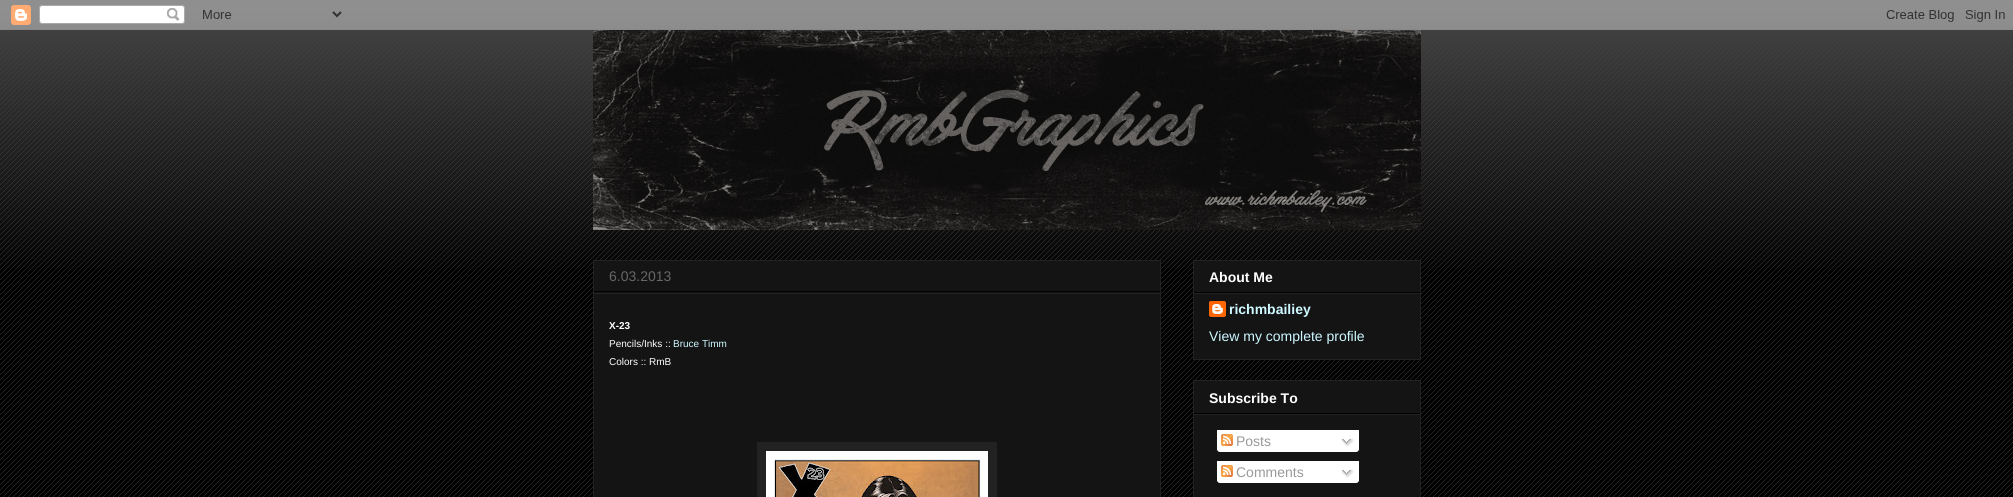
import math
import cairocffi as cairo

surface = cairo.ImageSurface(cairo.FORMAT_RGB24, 2013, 497)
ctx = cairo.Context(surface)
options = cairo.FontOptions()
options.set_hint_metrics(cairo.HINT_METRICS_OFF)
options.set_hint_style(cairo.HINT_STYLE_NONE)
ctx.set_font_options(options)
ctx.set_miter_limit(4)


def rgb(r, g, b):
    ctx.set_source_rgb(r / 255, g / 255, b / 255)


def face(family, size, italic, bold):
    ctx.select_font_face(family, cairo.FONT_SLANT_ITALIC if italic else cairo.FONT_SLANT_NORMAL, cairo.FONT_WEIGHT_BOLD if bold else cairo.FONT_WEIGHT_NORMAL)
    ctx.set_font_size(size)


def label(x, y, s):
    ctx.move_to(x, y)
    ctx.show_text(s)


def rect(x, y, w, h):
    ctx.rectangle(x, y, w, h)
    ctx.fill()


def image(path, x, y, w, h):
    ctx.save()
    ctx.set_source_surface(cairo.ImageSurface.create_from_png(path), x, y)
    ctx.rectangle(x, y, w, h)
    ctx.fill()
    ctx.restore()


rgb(0, 0, 0)
ctx.paint()
image('image0.png', 0, 13, 2013, 484)
image('image1.png', 0, 0, 2013, 268)
image('image2.png', 0, 0, 2013, 30)
image('image3.png', 593, 30, 828, 200)
rgb(20, 20, 20)
ctx.rectangle(593.5, 260.5, 567, 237)
ctx.fill_preserve()
rgb(34, 34, 34)
ctx.set_line_width(1)
ctx.stroke()
rgb(0, 0, 0)
rect(594, 291, 566, 1)
face('Liberation Sans', 14, 0, 0)
rgb(102, 102, 102)
label(609, 281, '6.03.2013')
rgb(34, 34, 34)
rect(594, 293, 566, 1)
face('Liberation Sans', 10, 0, 1)
rgb(255, 255, 255)
label(609, 329, 'X-23')
face('Liberation Sans', 10, 0, 0)
label(609, 347, 'Pencils/Inks ::')
rgb(205, 248, 255)
label(673, 347, 'Bruce Timm')
rgb(255, 255, 255)
label(609, 365, 'Colors :: RmB')
rgb(34, 34, 34)
rect(757, 442, 240, 55)
image('image4.png', 766, 451, 222, 46)
rgb(20, 20, 20)
ctx.rectangle(1193.5, 260.5, 227, 99)
ctx.fill_preserve()
rgb(34, 34, 34)
ctx.stroke()
rgb(0, 0, 0)
rect(1194, 292, 226, 1)
face('Liberation Sans', 14, 0, 1)
rgb(255, 255, 255)
label(1209, 282, 'About Me')
rgb(34, 34, 34)
rect(1194, 293, 226, 1)
image('image5.png', 1209, 301, 17, 16)
rgb(205, 248, 255)
label(1229, 314, 'richmbailiey')
face('Liberation Sans', 14, 0, 0)
label(1209, 341, 'View my complete profile')
rgb(20, 20, 20)
ctx.rectangle(1193.5, 380.5, 227, 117)
ctx.fill_preserve()
rgb(34, 34, 34)
ctx.stroke()
rgb(0, 0, 0)
rect(1194, 413, 226, 1)
face('Liberation Sans', 14, 0, 1)
rgb(255, 255, 255)
label(1209, 403, 'Subscribe To')
rgb(34, 34, 34)
rect(1194, 414, 226, 1)
rgb(255, 255, 255)
rect(1217, 430, 142, 20)
image('image6.png', 1221, 434, 12, 12)
face('Liberation Sans', 14, 0, 0)
rgb(153, 153, 153)
label(1236, 446, 'Posts')
image('image7.png', 1341, 438, 13, 9)
image('image8.png', 1217, 450, 142, 2)
rgb(255, 255, 255)
rect(1217, 461, 142, 20)
image('image6.png', 1221, 465, 12, 12)
rgb(153, 153, 153)
label(1236, 477, 'Comments')
image('image7.png', 1341, 469, 13, 9)
image('image8.png', 1217, 481, 142, 2)
surface.write_to_png('render.png')
